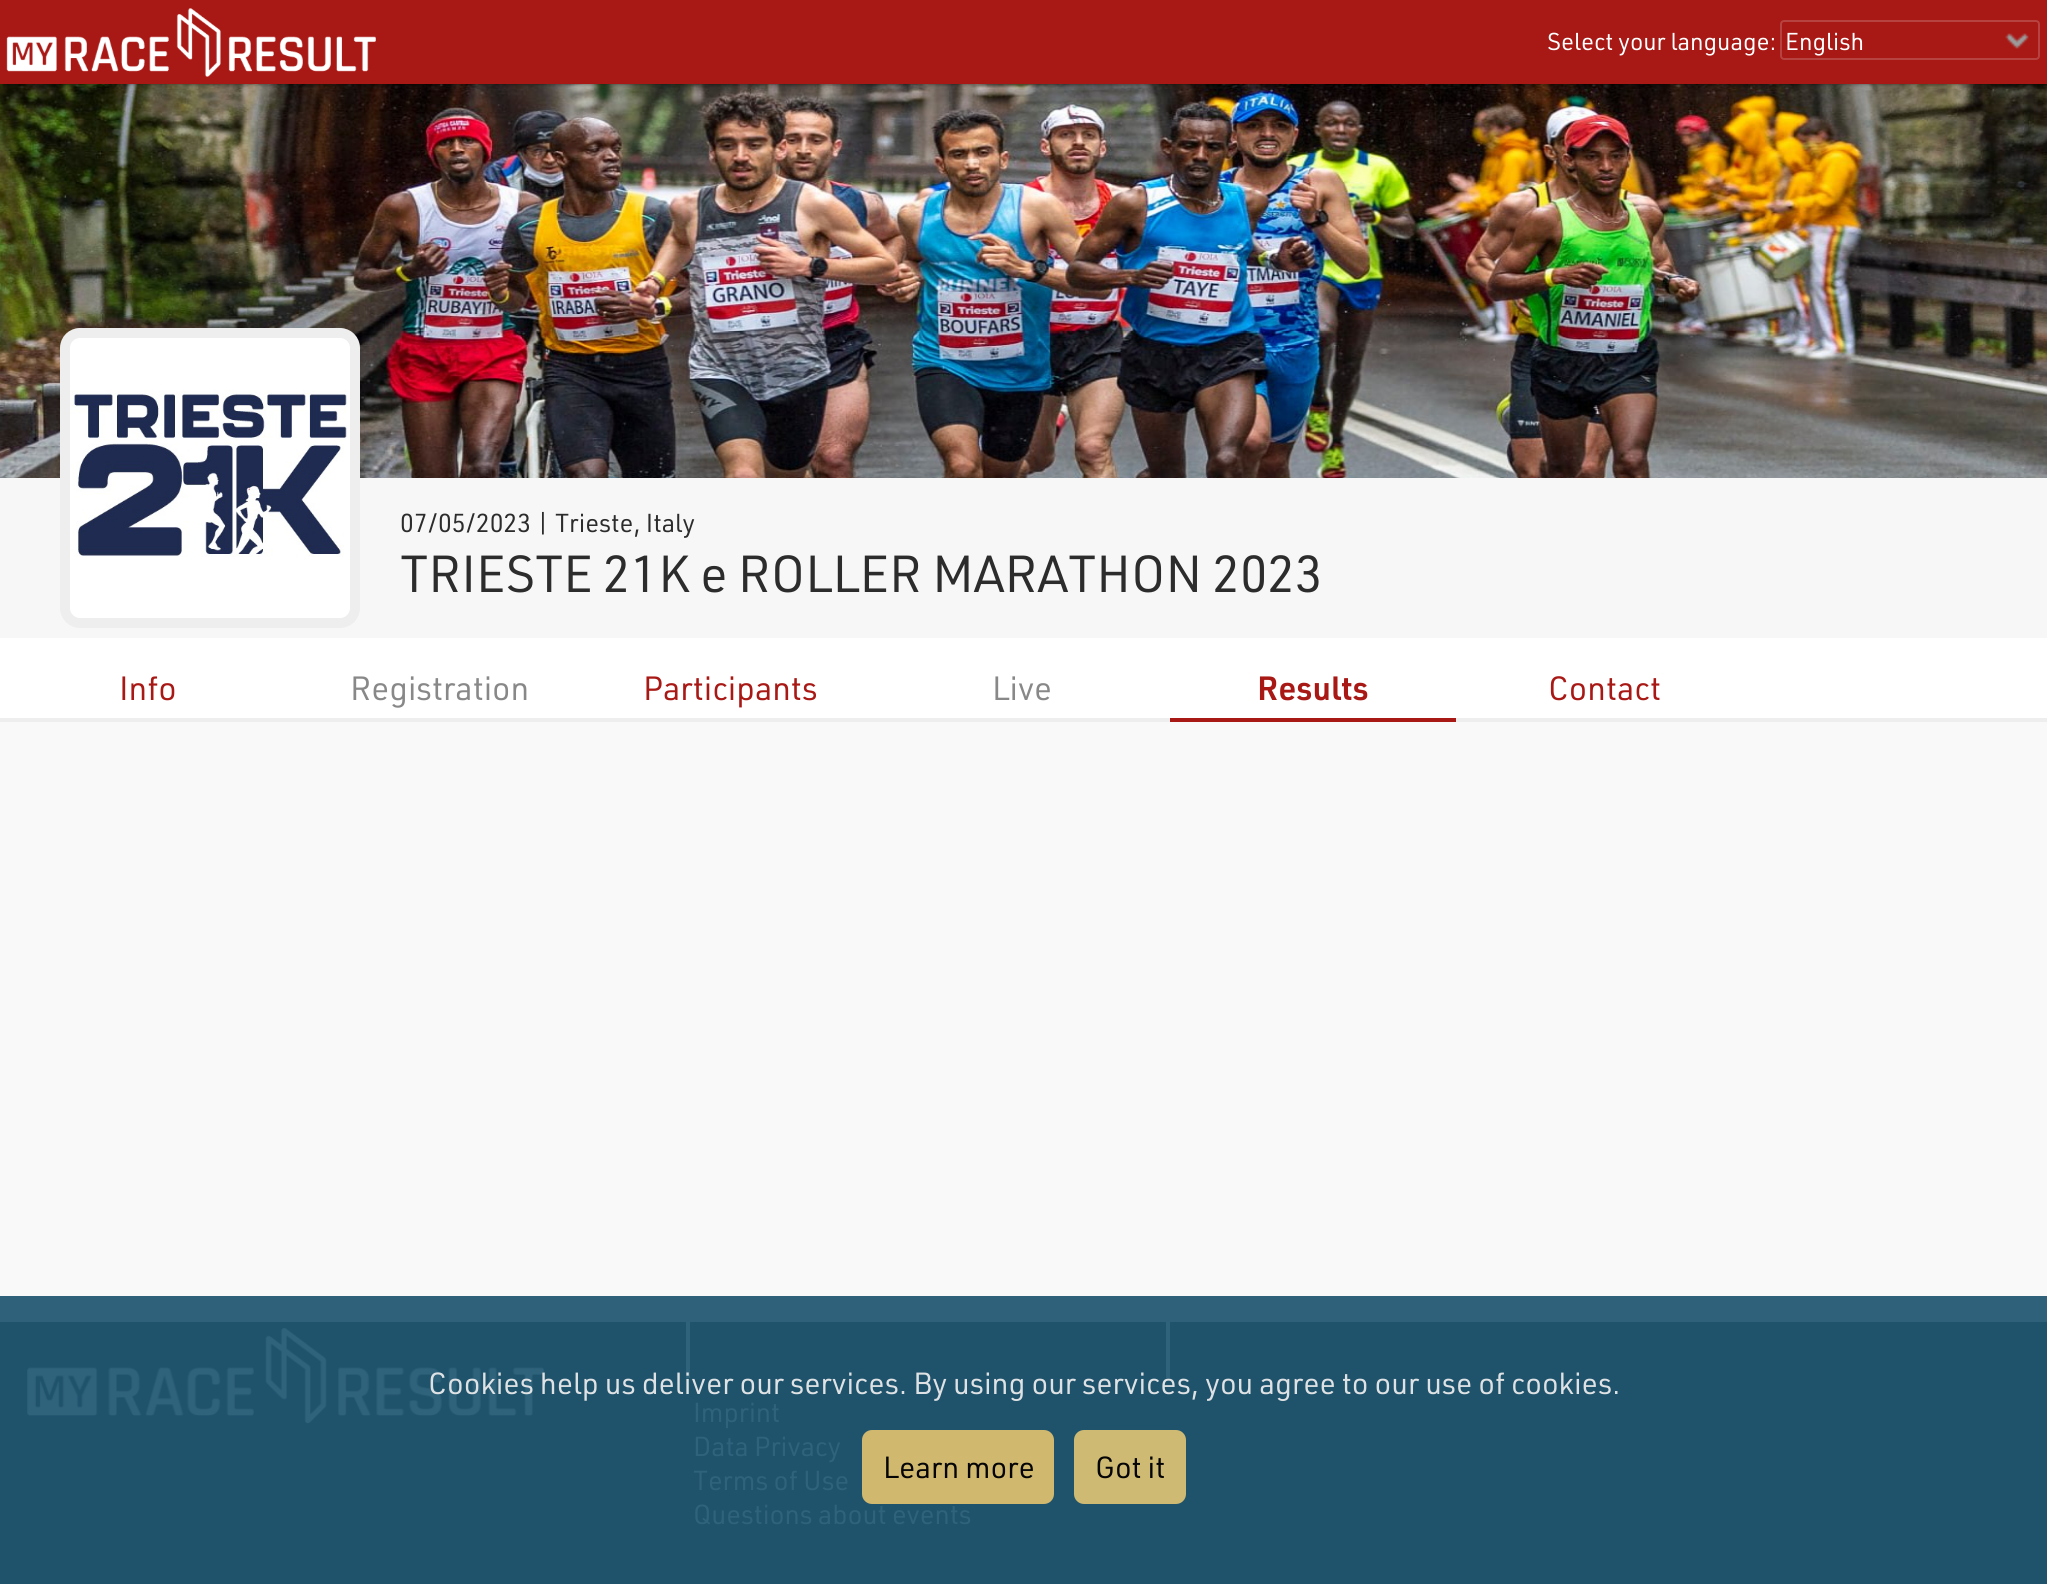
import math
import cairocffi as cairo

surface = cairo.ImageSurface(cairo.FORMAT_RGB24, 2047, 1584)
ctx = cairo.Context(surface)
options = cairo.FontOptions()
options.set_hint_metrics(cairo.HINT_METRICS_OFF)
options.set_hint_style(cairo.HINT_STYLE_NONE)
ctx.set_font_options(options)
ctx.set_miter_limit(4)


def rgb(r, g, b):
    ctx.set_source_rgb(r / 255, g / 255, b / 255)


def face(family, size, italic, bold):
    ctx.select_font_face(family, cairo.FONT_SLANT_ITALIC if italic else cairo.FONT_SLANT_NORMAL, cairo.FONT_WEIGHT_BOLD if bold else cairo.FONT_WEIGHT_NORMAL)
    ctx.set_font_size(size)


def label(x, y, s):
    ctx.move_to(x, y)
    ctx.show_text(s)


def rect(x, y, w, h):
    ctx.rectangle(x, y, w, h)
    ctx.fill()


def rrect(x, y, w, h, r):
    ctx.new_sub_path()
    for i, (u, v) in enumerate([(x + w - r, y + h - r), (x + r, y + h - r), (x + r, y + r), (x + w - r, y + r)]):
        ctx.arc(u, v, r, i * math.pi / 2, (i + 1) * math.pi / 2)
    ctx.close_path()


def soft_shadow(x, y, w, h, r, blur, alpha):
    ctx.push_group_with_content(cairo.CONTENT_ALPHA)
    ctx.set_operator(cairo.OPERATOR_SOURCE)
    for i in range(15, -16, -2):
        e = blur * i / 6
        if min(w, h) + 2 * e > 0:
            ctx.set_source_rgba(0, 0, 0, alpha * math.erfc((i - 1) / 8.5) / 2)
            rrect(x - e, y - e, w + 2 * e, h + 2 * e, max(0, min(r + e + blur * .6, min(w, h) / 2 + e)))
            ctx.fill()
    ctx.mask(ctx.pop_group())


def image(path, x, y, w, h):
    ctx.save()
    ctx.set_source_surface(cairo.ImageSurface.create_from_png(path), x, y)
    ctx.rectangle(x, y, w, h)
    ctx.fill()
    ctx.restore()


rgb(255, 255, 255)
ctx.paint()
image('image2.png', 0, 84, 2047, 394)
rgb(0, 0, 0)
soft_shadow(4, 8, 2040, 76, 0, 2, 0.52)
rgb(168, 24, 21)
rect(0, 0, 2047, 84)
image('image0.png', 6, 8, 370, 69)
face('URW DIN', 24, 0, 0)
rgb(255, 255, 255)
label(1547, 50, 'Select your language:')
image('image1.png', 2005, 33, 24, 16)
rrect(1781, 21, 258, 38, 3)
rgb(183, 67, 64)
ctx.stroke()
rgb(255, 255, 255)
label(1785, 50, 'English')
rgb(247, 247, 247)
rect(0, 478, 2047, 160)
rgb(255, 255, 255)
rrect(65, 333, 290, 290, 15)
ctx.fill_preserve()
rgb(238, 238, 238)
ctx.set_line_width(10)
ctx.stroke()
image('image3.png', 70, 390, 278, 167)
face('URW DIN', 25.5, 0, 0)
rgb(44, 44, 44)
label(400, 532, '07/05/2023 | Trieste, Italy')
face('URW DIN', 51, 0, 0)
label(400, 592, 'TRIESTE 21K e ROLLER MARATHON 2023')
rgb(238, 238, 238)
rect(0, 718, 2047, 4)
face('URW DIN', 33, 0, 0)
rgb(168, 24, 21)
label(119, 700, 'Info')
rgb(136, 136, 136)
label(350, 700, 'Registration')
rgb(168, 24, 21)
label(643, 700, 'Participants')
rgb(136, 136, 136)
label(992, 700, 'Live')
rgb(168, 24, 21)
rect(1170, 718, 286, 4)
face('URW DIN SemiBold', 33, 0, 0)
label(1257, 700, 'Results')
face('URW DIN', 33, 0, 0)
label(1548, 700, 'Contact')
rgb(249, 249, 249)
rect(0, 722, 2047, 574)
rgb(47, 97, 122)
rect(0, 1296, 2047, 26)
rgb(31, 82, 107)
rect(0, 1322, 2047, 262)
image('image4.png', 27, 1328, 517, 96)
rgb(47, 98, 123)
rect(1166, 1322, 4, 56)
rect(686, 1322, 4, 56)
face('URW DIN', 30, 0, 0)
rgb(222, 226, 228)
label(428, 1394, 'Cookies help us deliver our services. By using our services, you agree to our use of cookies.')
rgb(208, 184, 111)
rrect(862, 1430, 192, 74, 10)
ctx.fill()
rgb(5, 5, 5)
label(883, 1478, 'Learn more')
ctx.set_source_rgba(0.867, 0.765, 0.455, 0.92)
rrect(1074, 1430, 112, 74, 10)
ctx.fill()
rgb(5, 5, 5)
label(1095, 1478, 'Got it')
face('URW DIN', 27, 0, 0)
rgb(47, 98, 123)
label(693, 1422, 'Imprint')
label(693, 1456, 'Data Privacy')
label(693, 1490, 'Terms of Use')
label(693, 1524, 'Questions about events')
surface.write_to_png('render.png')
